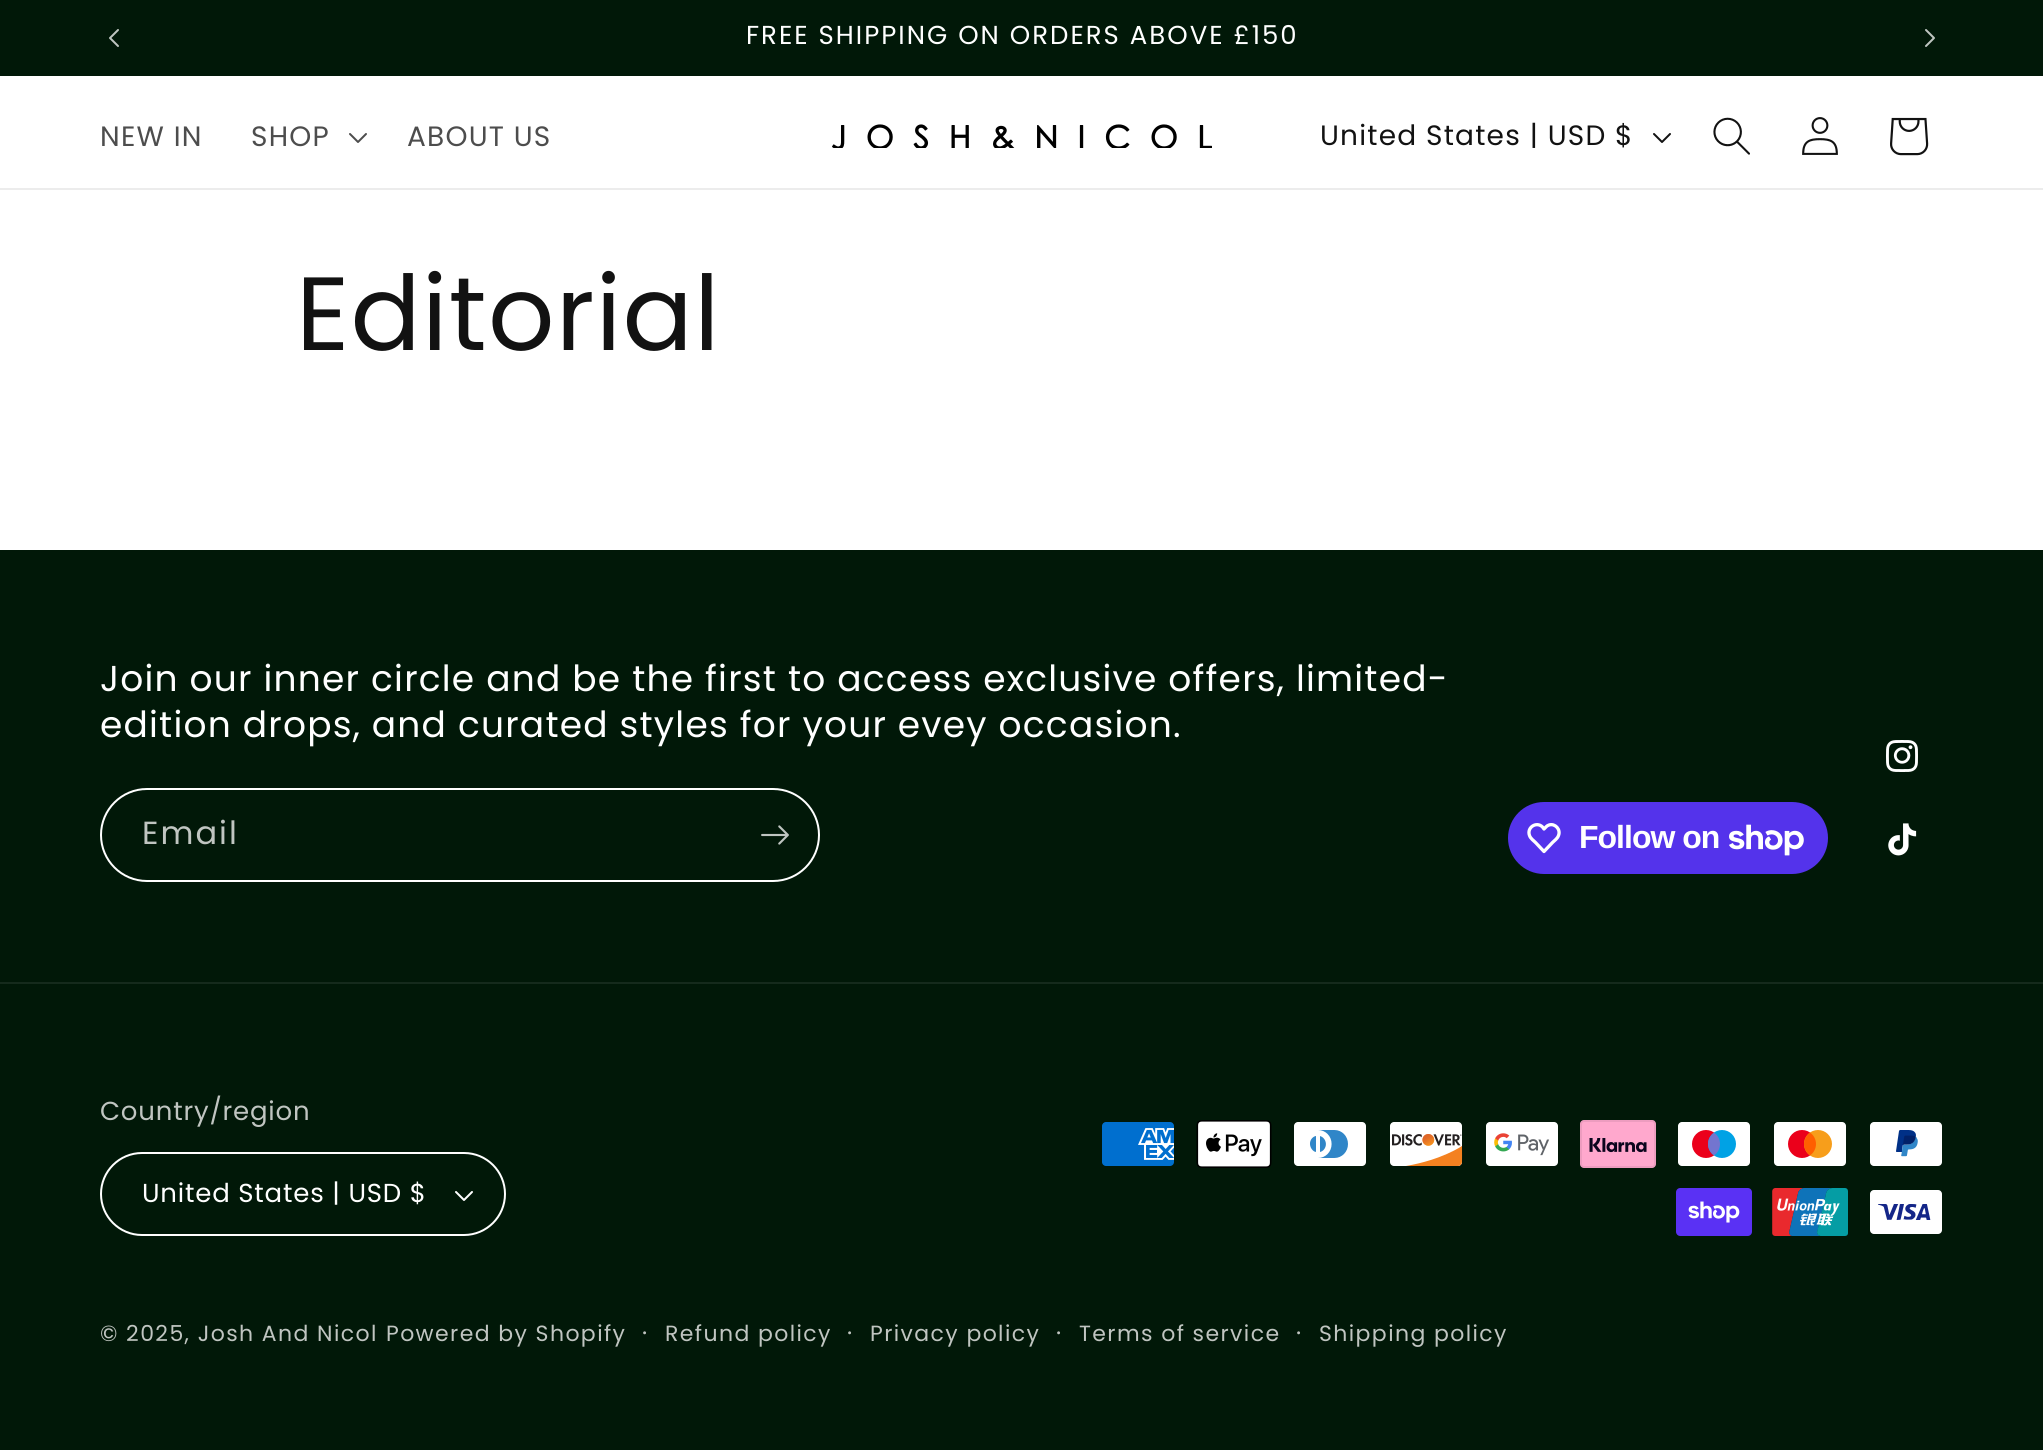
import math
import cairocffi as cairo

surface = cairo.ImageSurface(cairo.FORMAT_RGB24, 2043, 1450)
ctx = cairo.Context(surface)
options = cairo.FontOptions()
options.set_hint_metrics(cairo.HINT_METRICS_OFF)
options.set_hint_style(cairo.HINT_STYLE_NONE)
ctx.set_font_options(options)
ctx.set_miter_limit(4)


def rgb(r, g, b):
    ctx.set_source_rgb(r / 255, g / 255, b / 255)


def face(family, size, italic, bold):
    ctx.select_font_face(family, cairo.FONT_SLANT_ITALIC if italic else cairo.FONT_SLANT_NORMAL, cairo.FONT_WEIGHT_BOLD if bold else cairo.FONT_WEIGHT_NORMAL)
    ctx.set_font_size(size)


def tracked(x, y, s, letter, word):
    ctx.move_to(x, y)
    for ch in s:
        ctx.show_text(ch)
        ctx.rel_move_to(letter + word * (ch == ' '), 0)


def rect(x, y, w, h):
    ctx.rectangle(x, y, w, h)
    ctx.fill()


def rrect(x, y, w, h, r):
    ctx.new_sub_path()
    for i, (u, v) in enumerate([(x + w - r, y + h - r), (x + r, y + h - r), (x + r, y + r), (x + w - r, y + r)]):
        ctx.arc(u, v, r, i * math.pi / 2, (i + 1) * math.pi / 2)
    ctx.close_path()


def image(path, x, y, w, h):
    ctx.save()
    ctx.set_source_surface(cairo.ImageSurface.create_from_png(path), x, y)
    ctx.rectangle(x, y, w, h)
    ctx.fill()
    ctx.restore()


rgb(255, 255, 255)
ctx.paint()
rgb(1, 24, 8)
rect(0, 0, 2043, 76)
image('image0.png', 109, 29, 10, 18)
face('Poppins', 26, 0, 0)
rgb(255, 255, 255)
tracked(746, 44, 'FREE SHIPPING ON ORDERS ABOVE £150', 2, 0)
image('image1.png', 1925, 29, 10, 18)
rgb(236, 236, 236)
rect(0, 188, 2043, 2)
face('Poppins', 28, 0, 0)
rgb(77, 77, 77)
tracked(100, 146, 'NEW IN', 1.2, 0)
tracked(251, 146, 'SHOP', 1.2, 0)
image('image2.png', 349, 133, 18, 10)
tracked(407, 146, 'ABOUT US', 1.2, 0)
image('image3.png', 832, 124, 380, 24)
rgb(18, 18, 18)
tracked(1320, 145, 'United States | USD $', 1.2, 0)
image('image4.png', 1653, 133, 18, 10)
image('image5.png', 1713, 117, 37, 38)
image('image6.png', 1802, 117, 36, 38)
image('image7.png', 1890, 117, 39, 39)
face('Poppins', 104, 0, 0)
tracked(296, 350, 'Editorial', 1.2, 0)
rgb(1, 24, 8)
rect(0, 550, 2043, 900)
face('Poppins', 36, 0, 0)
rgb(255, 255, 255)
tracked(100, 691, 'Join our inner circle and be the first to access exclusive offers, limited-', 1.2, 0)
tracked(100, 737, 'edition drops, and curated styles for your evey occasion.', 1.2, 0)
rrect(101, 789, 718, 92, 46)
ctx.stroke()
face('Poppins', 32, 0, 0)
rgb(192, 197, 193)
tracked(142, 844, 'Email', 2, 0)
image('image8.png', 761, 825, 28, 20)
rgb(84, 51, 235)
rrect(1508, 802, 320, 72, 36)
ctx.fill()
ctx.new_path()
ctx.move_to(1542.5, 827)
ctx.line_to(1544, 829)
ctx.curve_to(1545.5, 827.5, 1547, 825.5, 1549, 825)
ctx.curve_to(1555, 823, 1561, 829.5, 1558.5, 835.5)
ctx.curve_to(1557.5, 838.5, 1554.5, 840.5, 1552.5, 842.5)
ctx.line_to(1544, 851.5)
ctx.line_to(1535.5, 842.5)
ctx.curve_to(1533.5, 840.5, 1530.5, 838.5, 1529.5, 835.5)
ctx.curve_to(1526.5, 827.5, 1536.5, 821, 1542.5, 827)
ctx.close_path()
rgb(255, 255, 255)
ctx.set_line_width(3.3)
ctx.set_line_join(cairo.LINE_JOIN_ROUND)
ctx.stroke()
face('Liberation Sans', 32, 0, 1)
tracked(1579, 848, 'Follow on', -1, 0)
image('image9.png', 1729, 824, 75, 32)
image('image10.png', 1886, 740, 32, 32)
image('image11.png', 1888, 823, 29, 33)
rgb(21, 42, 28)
rect(0, 982, 2043, 2)
face('Poppins', 26, 0, 0)
rgb(192, 197, 193)
tracked(100, 1120, 'Country/region', 0.8, 0)
image('image12.png', 455, 1191, 18, 10)
rrect(101, 1153, 404, 82, 41)
rgb(255, 255, 255)
ctx.set_line_width(2)
ctx.set_line_join(cairo.LINE_JOIN_MITER)
ctx.stroke()
tracked(142, 1202, 'United States | USD $', 0.8, 0)
image('image13.png', 1102, 1122, 72, 44)
image('image14.png', 1196, 1120, 76, 48)
image('image15.png', 1294, 1122, 72, 44)
image('image16.png', 1390, 1122, 73, 44)
image('image17.png', 1486, 1122, 72, 44)
image('image18.png', 1580, 1120, 76, 48)
image('image19.png', 1678, 1122, 72, 44)
image('image20.png', 1774, 1122, 72, 44)
image('image21.png', 1870, 1122, 72, 44)
image('image22.png', 1676, 1188, 76, 48)
image('image23.png', 1772, 1188, 76, 48)
image('image24.png', 1870, 1190, 72, 44)
face('Poppins', 22, 0, 0)
rgb(192, 197, 193)
tracked(100, 1341, '© 2025, Josh And Nicol', 1.4, 0)
tracked(386, 1341, 'Powered by Shopify', 1.4, 0)
face('Poppins', 24, 0, 0)
tracked(642, 1341, '·', 1.4, 0)
face('Poppins', 22, 0, 0)
tracked(665, 1341, 'Refund policy', 1.4, 0)
face('Poppins', 24, 0, 0)
tracked(847, 1341, '·', 1.4, 0)
face('Poppins', 22, 0, 0)
tracked(870, 1341, 'Privacy policy', 1.4, 0)
face('Poppins', 24, 0, 0)
tracked(1056, 1341, '·', 1.4, 0)
face('Poppins', 22, 0, 0)
tracked(1079, 1341, 'Terms of service', 1.4, 0)
face('Poppins', 24, 0, 0)
tracked(1296, 1341, '·', 1.4, 0)
face('Poppins', 22, 0, 0)
tracked(1319, 1341, 'Shipping policy', 1.4, 0)
surface.write_to_png('render.png')
